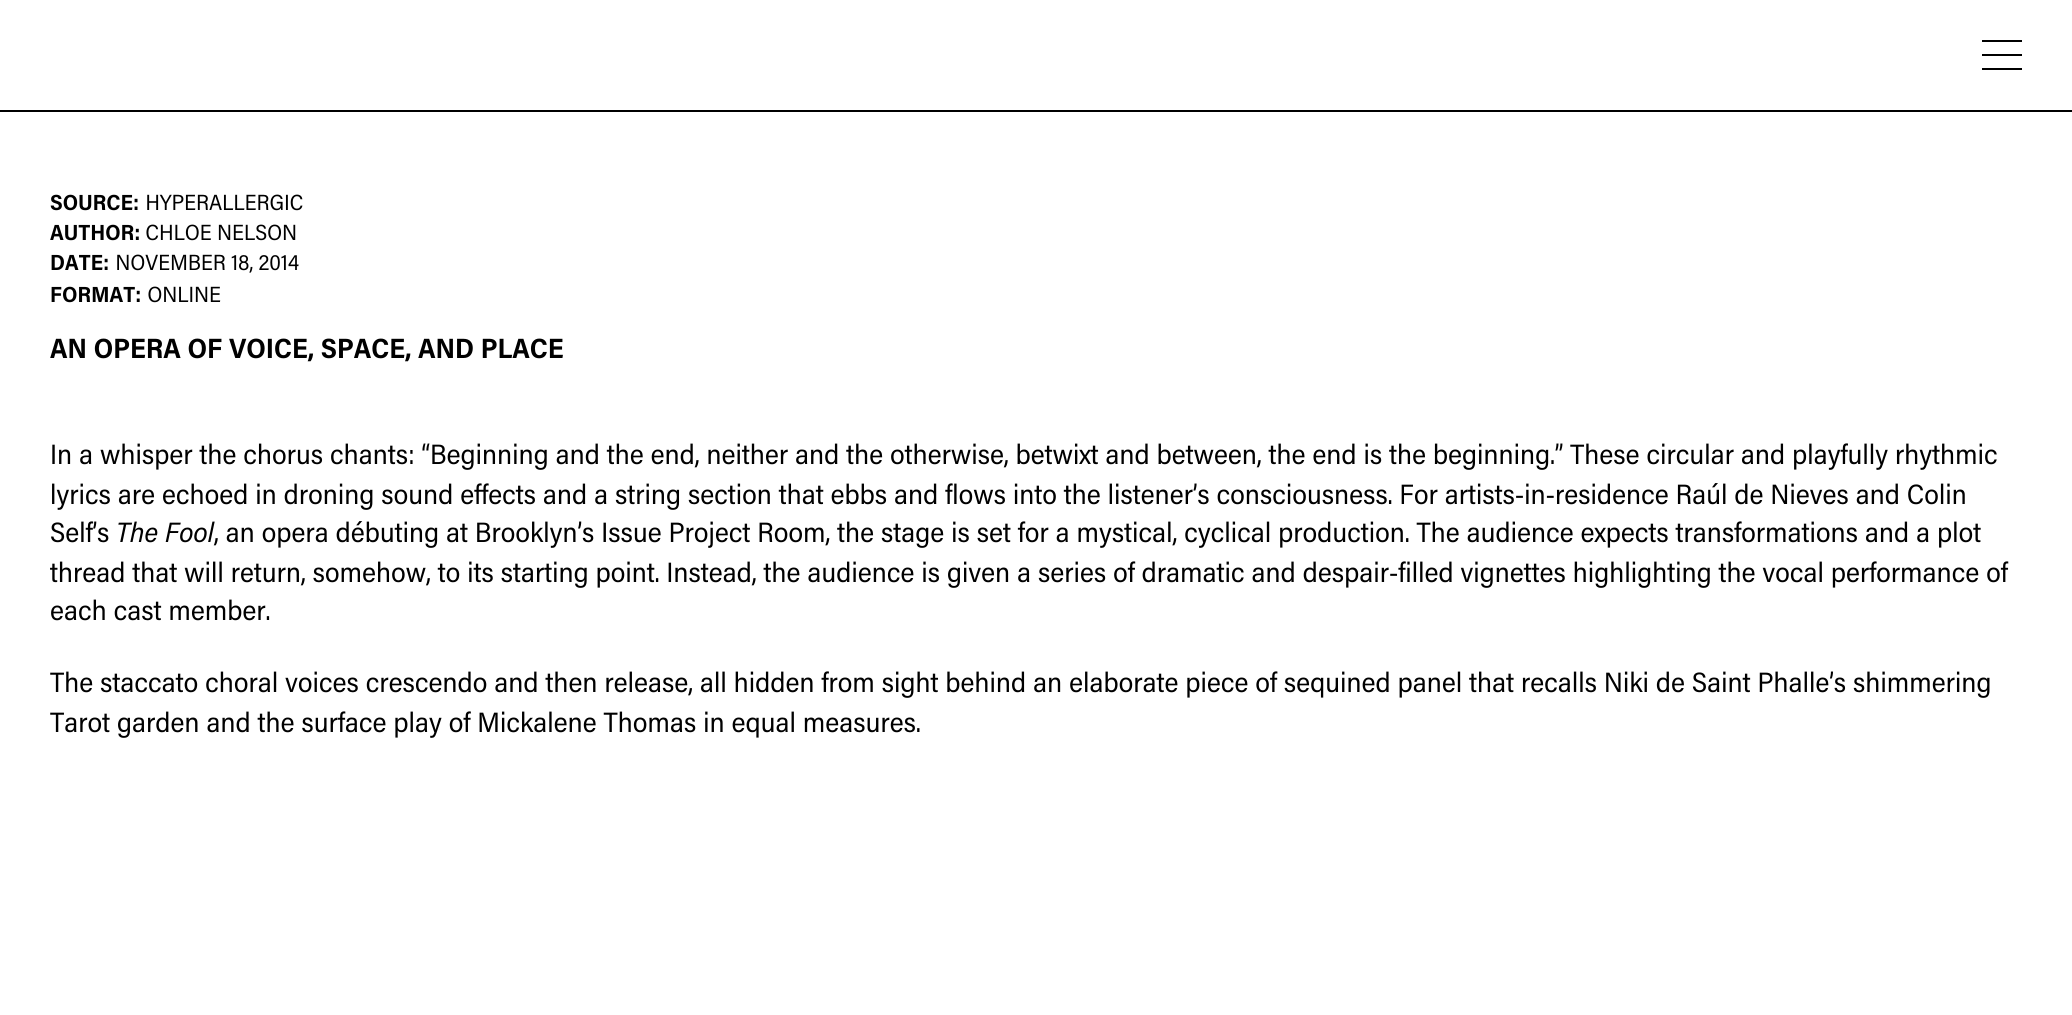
import math
import cairocffi as cairo

surface = cairo.ImageSurface(cairo.FORMAT_RGB24, 2072, 1015)
ctx = cairo.Context(surface)
options = cairo.FontOptions()
options.set_hint_metrics(cairo.HINT_METRICS_OFF)
options.set_hint_style(cairo.HINT_STYLE_NONE)
ctx.set_font_options(options)
ctx.set_miter_limit(4)


def rgb(r, g, b):
    ctx.set_source_rgb(r / 255, g / 255, b / 255)


def rect(x, y, w, h):
    ctx.rectangle(x, y, w, h)
    ctx.fill()


def image(path, x, y, w, h):
    ctx.save()
    ctx.set_source_surface(cairo.ImageSurface.create_from_png(path), x, y)
    ctx.rectangle(x, y, w, h)
    ctx.fill()
    ctx.restore()


rgb(255, 255, 255)
ctx.paint()
rgb(0, 0, 0)
rect(0, 110, 2072, 2)
rect(1982, 40, 40, 2)
rect(1982, 68, 40, 2)
rect(1982, 54, 40, 2)
image('image0.png', 50, 194, 88, 17)
image('image1.png', 147, 194, 156, 17)
image('image2.png', 50, 224, 89, 17)
image('image3.png', 146, 224, 150, 17)
image('image4.png', 51, 254, 57, 16)
image('image5.png', 117, 254, 182, 19)
image('image6.png', 51, 286, 89, 17)
image('image7.png', 148, 286, 73, 17)
image('image8.png', 50, 338, 513, 24)
image('image9.png', 52, 443, 1945, 27)
image('image10.png', 52, 483, 1913, 27)
image('image11.png', 51, 521, 58, 22)
image('image12.png', 118, 521, 97, 22)
image('image13.png', 213, 521, 1768, 27)
image('image14.png', 50, 561, 1959, 27)
image('image15.png', 51, 599, 219, 22)
image('image16.png', 50, 671, 1940, 27)
image('image17.png', 50, 711, 870, 27)
surface.write_to_png('render.png')
